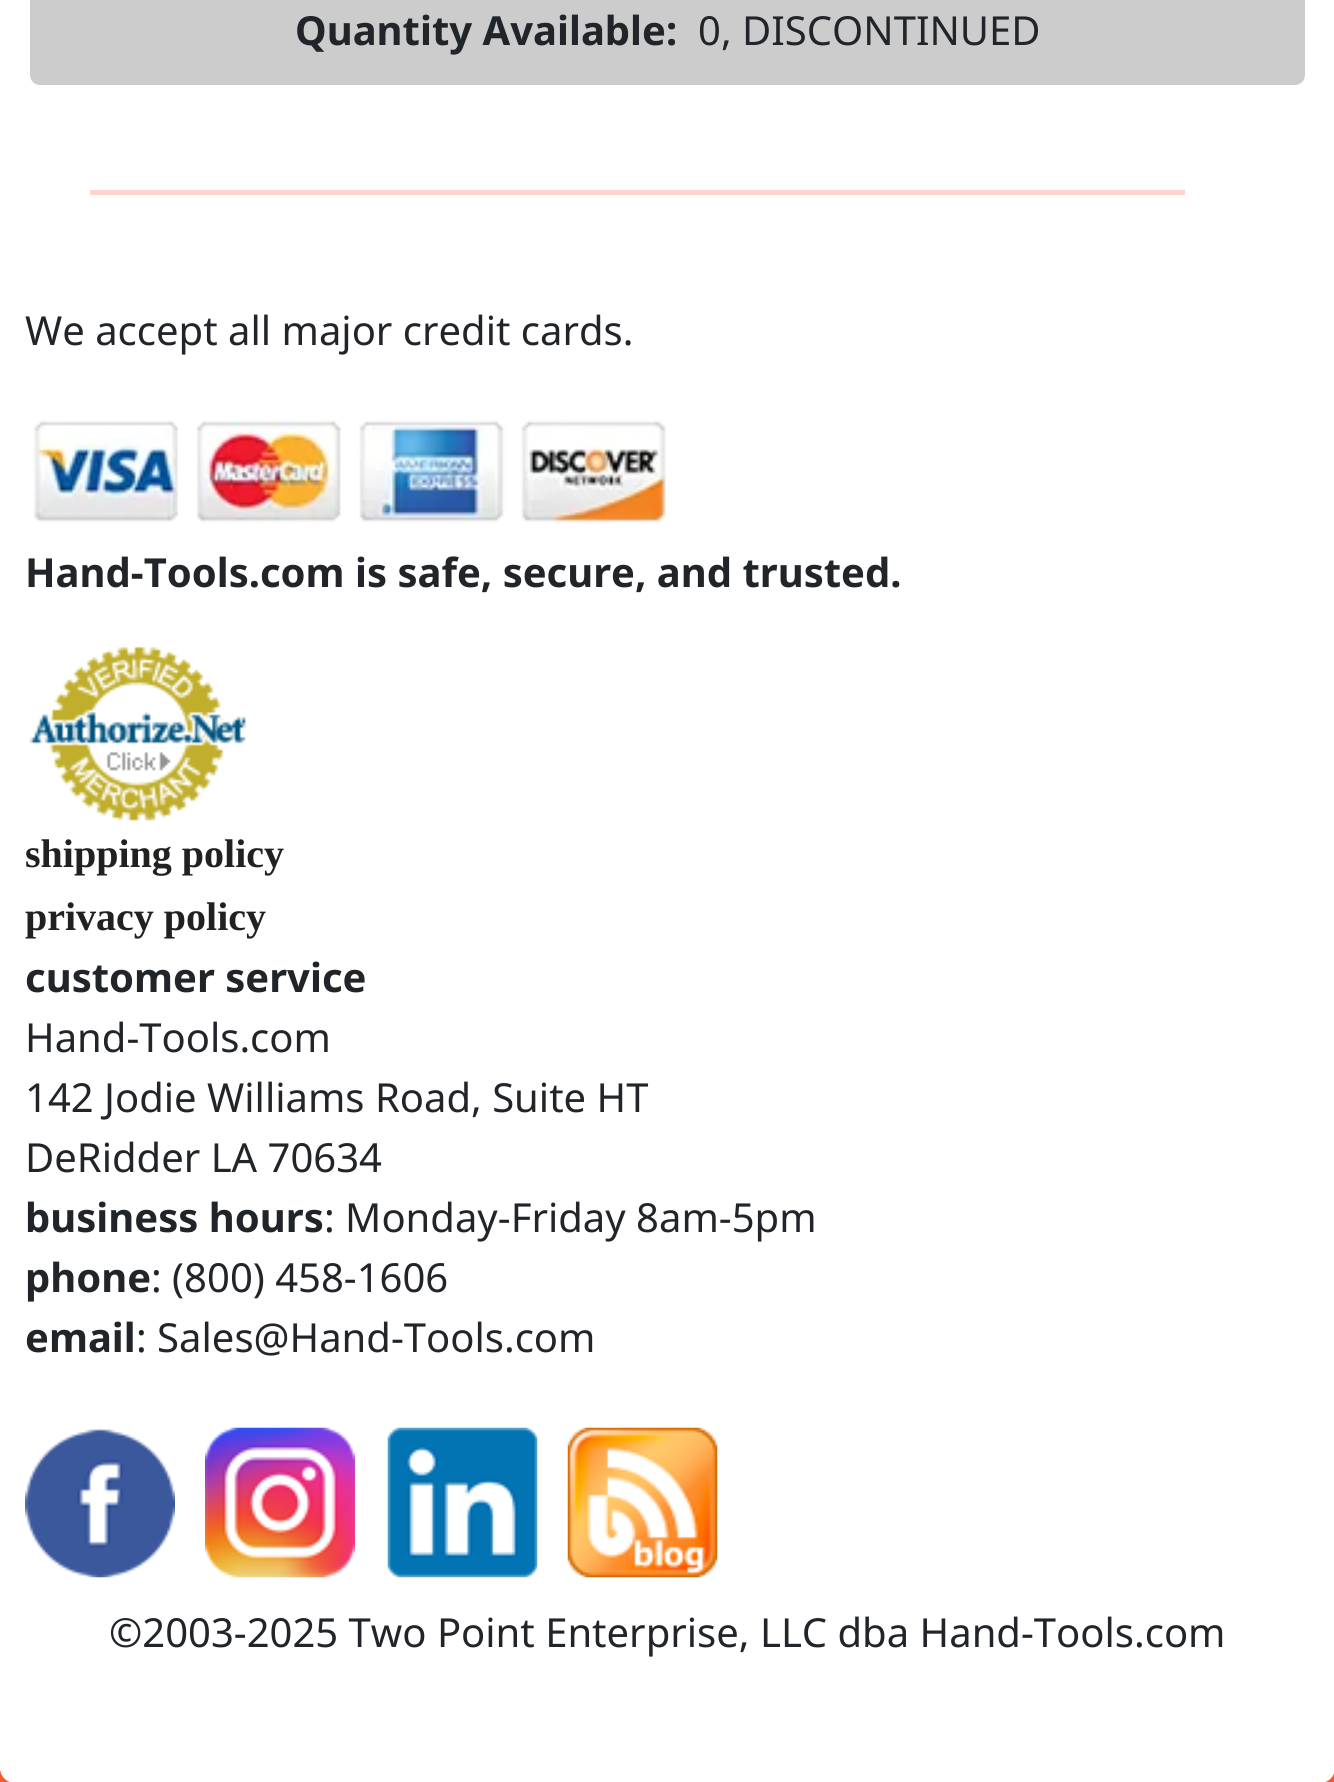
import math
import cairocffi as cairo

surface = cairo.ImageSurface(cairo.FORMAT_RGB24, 1334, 1782)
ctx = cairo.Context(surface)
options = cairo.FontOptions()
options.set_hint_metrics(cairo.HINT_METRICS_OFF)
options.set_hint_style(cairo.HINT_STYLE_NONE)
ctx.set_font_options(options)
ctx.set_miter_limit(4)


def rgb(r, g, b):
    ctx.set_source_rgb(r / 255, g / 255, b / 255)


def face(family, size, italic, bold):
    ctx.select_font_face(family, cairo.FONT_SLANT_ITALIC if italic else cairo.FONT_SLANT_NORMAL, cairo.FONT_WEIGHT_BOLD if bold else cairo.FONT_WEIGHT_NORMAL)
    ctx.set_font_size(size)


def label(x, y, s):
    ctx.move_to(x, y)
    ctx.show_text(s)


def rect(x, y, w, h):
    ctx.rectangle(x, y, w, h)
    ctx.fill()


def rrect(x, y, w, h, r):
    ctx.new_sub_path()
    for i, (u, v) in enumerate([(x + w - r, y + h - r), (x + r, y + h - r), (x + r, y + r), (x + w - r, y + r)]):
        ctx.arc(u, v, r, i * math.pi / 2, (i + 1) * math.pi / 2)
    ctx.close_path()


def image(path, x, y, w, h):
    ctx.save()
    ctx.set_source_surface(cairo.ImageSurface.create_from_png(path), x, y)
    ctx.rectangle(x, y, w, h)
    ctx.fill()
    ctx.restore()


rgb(241, 92, 50)
ctx.paint()
rgb(255, 255, 255)
rrect(0, -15, 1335, 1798, 15)
ctx.fill()
rgb(204, 204, 204)
rrect(30, -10, 1275, 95, 10)
ctx.fill()
face('Noto Sans', 40, 0, 1)
rgb(33, 37, 41)
label(295, 45, 'Quantity Available:')
face('Noto Sans', 40, 0, 0)
label(698, 45, '0, DISCONTINUED')
rgb(252, 214, 204)
rect(90, 190, 1095, 5)
rgb(33, 37, 41)
label(25, 345, 'We accept all major credit cards.')
image('image0.png', 33, 420, 633, 103)
face('Noto Sans', 40, 0, 1)
label(25, 587, 'Hand-Tools.com is safe, secure, and trusted.')
image('image1.png', 29, 646, 217, 175)
face('Liberation Serif', 40, 0, 1)
rgb(33, 33, 32)
label(25, 867, 'shipping policy')
label(25, 930, 'privacy policy')
face('Noto Sans', 40, 0, 1)
rgb(33, 37, 41)
label(25, 992, 'customer service')
face('Noto Sans', 40, 0, 0)
label(25, 1052, 'Hand-Tools.com')
label(25, 1112, '142 Jodie Williams Road, Suite HT')
label(25, 1172, 'DeRidder LA 70634')
face('Noto Sans', 40, 0, 1)
label(25, 1232, 'business hours')
face('Noto Sans', 40, 0, 0)
label(324, 1232, ': Monday-Friday 8am-5pm')
face('Noto Sans', 40, 0, 1)
label(25, 1292, 'phone')
face('Noto Sans', 40, 0, 0)
label(151, 1292, ': (800) 458-1606')
face('Noto Sans', 40, 0, 1)
label(25, 1352, 'email')
face('Noto Sans', 40, 0, 0)
label(136, 1352, ': Sales@Hand-Tools.com')
image('image2.png', 25, 1429, 150, 149)
image('image3.png', 205, 1427, 150, 151)
image('image4.png', 387, 1427, 151, 151)
image('image5.png', 567, 1427, 151, 151)
label(109, 1647, '©2003-2025 Two Point Enterprise, LLC dba Hand-Tools.com')
surface.write_to_png('render.png')
